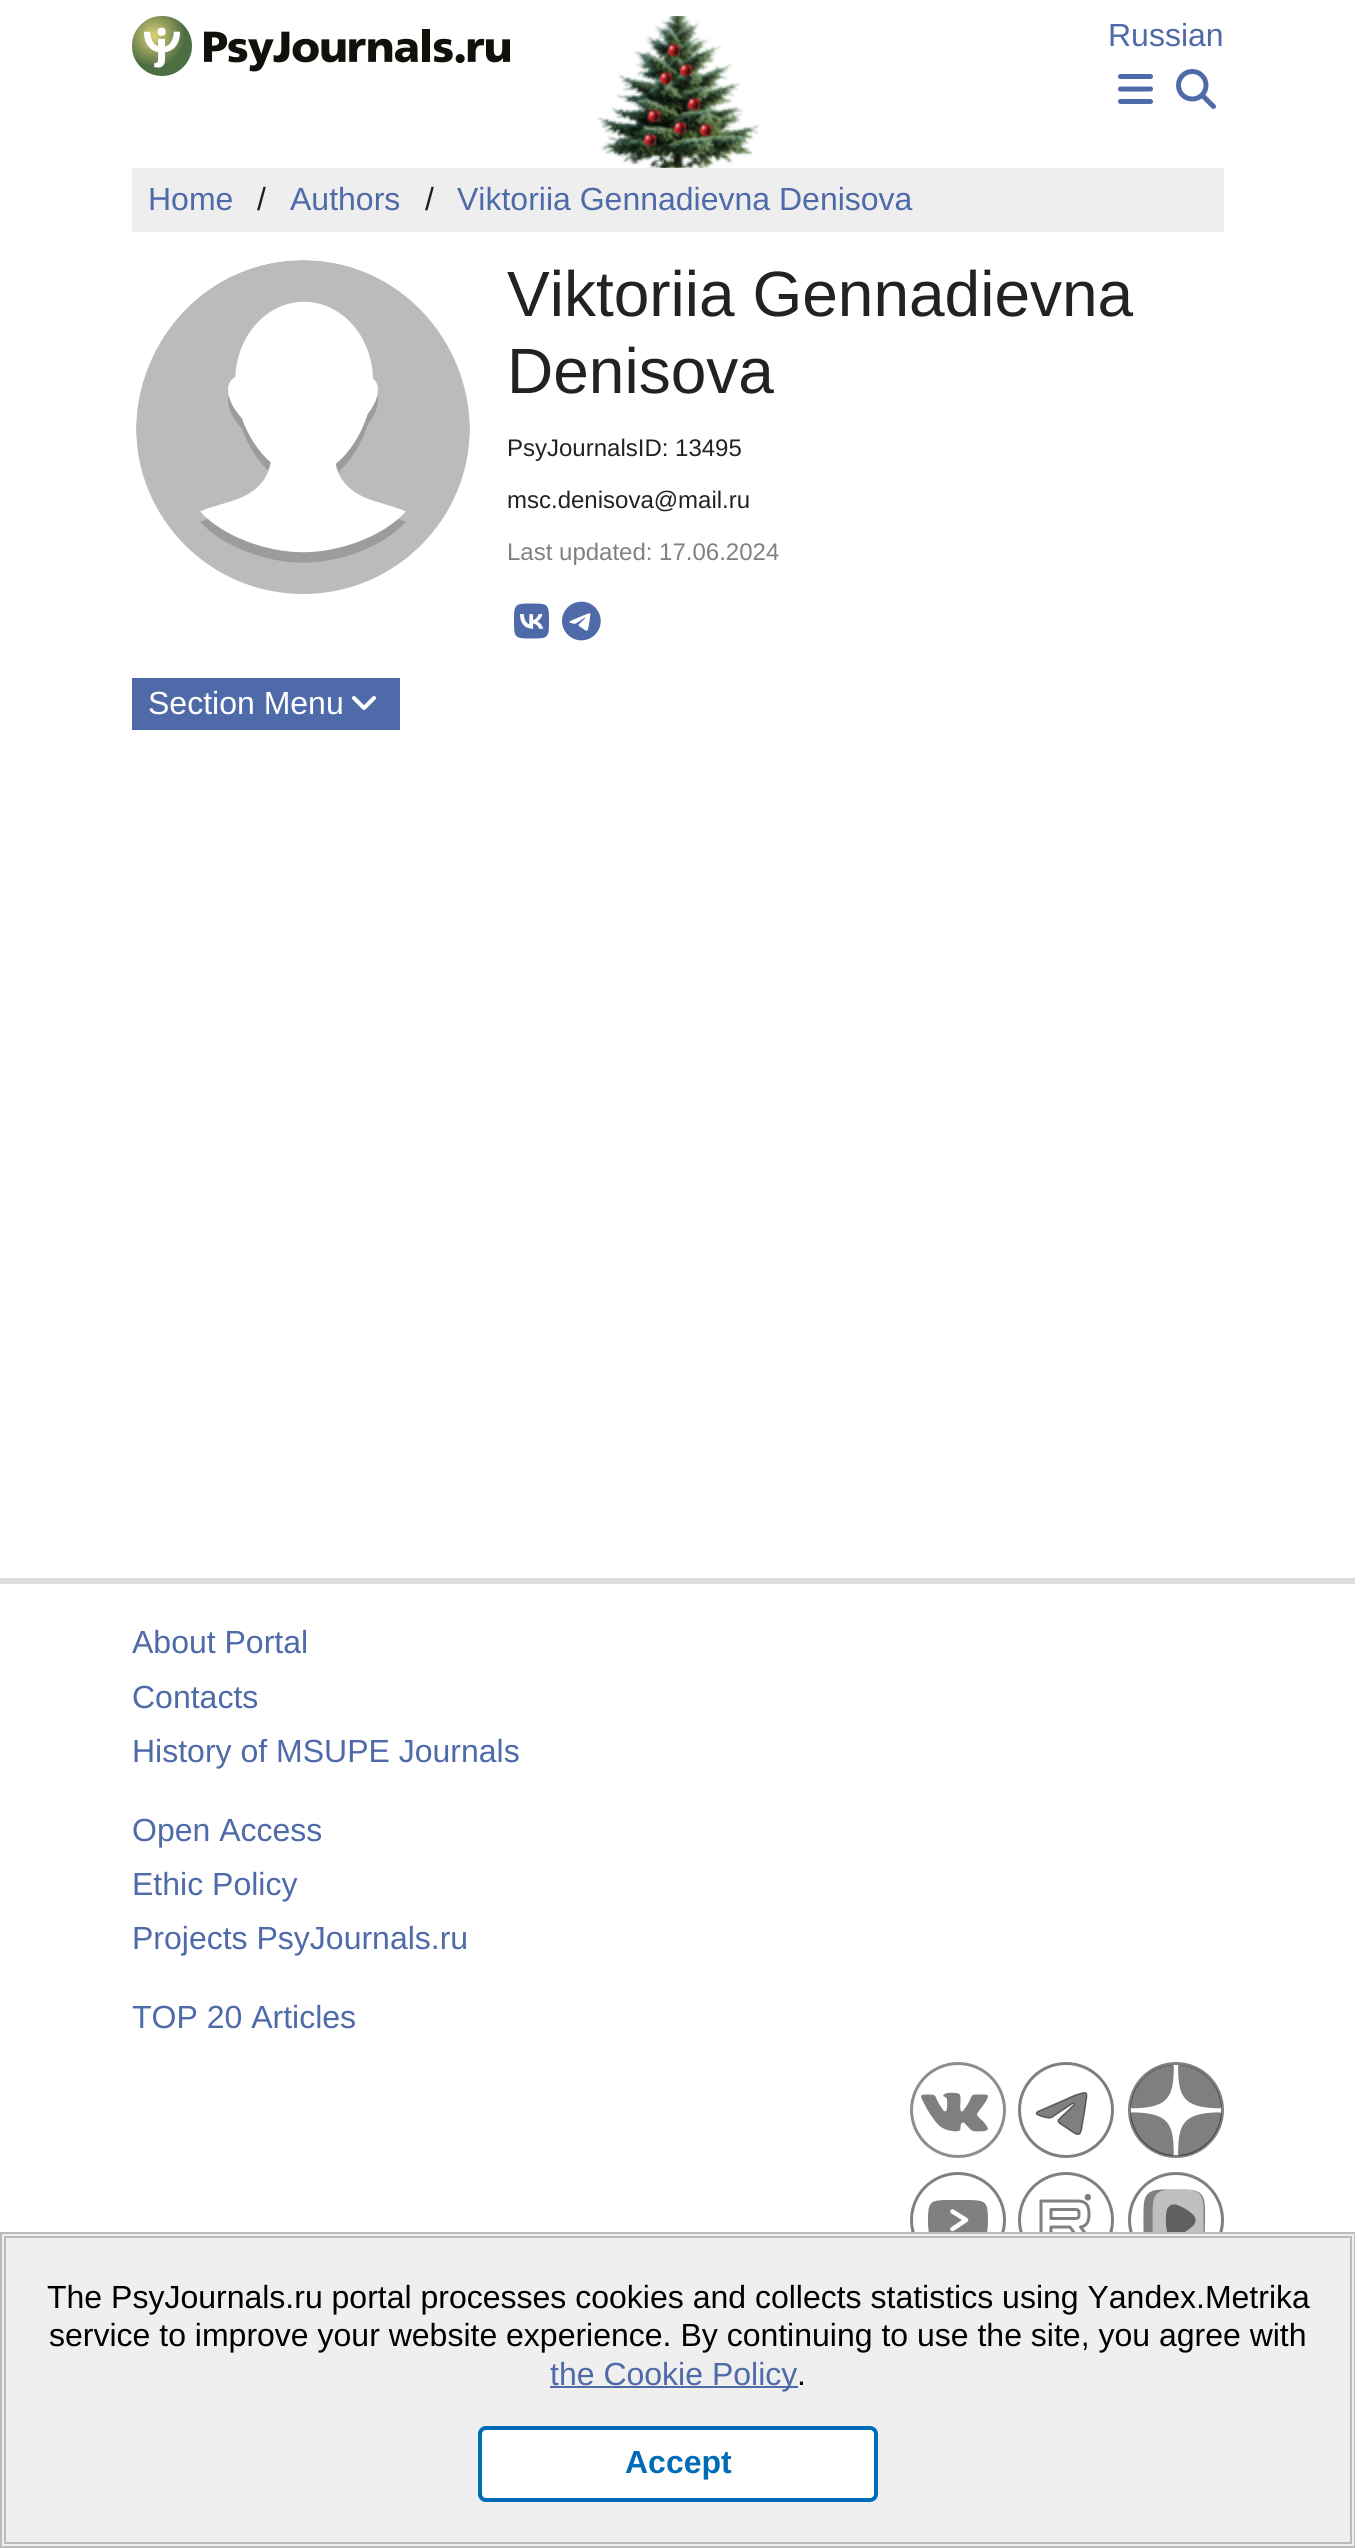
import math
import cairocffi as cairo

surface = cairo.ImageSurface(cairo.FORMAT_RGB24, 1355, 2548)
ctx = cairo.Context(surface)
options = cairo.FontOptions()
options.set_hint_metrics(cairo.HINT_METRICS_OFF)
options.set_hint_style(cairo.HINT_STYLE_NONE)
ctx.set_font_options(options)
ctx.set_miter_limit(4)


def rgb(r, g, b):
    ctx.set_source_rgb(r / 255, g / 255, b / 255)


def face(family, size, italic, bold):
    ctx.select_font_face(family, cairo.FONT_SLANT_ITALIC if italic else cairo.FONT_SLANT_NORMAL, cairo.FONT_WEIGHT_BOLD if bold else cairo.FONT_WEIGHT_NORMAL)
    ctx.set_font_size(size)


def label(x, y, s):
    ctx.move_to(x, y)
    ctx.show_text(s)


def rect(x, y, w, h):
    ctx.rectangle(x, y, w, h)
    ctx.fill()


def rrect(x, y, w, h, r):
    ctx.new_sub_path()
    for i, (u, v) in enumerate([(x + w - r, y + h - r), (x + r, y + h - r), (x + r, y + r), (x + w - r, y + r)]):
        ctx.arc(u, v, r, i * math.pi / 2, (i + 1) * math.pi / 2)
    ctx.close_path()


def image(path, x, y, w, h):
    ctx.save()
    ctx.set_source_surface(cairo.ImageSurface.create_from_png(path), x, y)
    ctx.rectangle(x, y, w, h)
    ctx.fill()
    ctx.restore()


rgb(255, 255, 255)
ctx.paint()
image('image0.png', 597, 16, 163, 152)
image('image1.png', 132, 16, 378, 60)
face('Liberation Sans', 32, 0, 0)
rgb(78, 106, 169)
label(1108, 46, 'Russian')
image('image2.png', 1118, 74, 35, 30)
image('image3.png', 1176, 69, 40, 40)
rgb(238, 238, 238)
rect(132, 168, 1092, 64)
rgb(78, 106, 169)
label(148, 210, 'Home')
rgb(34, 34, 34)
label(257, 210, '/')
rgb(78, 106, 169)
label(290, 210, 'Authors')
rgb(34, 34, 34)
label(425, 210, '/')
rgb(78, 106, 169)
label(457, 210, 'Viktoriia Gennadievna Denisova')
image('image4.png', 136, 260, 334, 334)
face('Liberation Sans', 64, 0, 0)
rgb(34, 34, 34)
label(507, 316, 'Viktoriia Gennadievna')
label(507, 393, 'Denisova')
face('Liberation Sans', 24, 0, 0)
label(507, 456, 'PsyJournalsID: 13495')
label(507, 508, 'msc.denisova@mail.ru')
rgb(128, 128, 128)
label(507, 560, 'Last updated: 17.06.2024')
image('image5.png', 514, 603, 35, 36)
image('image6.png', 562, 601, 39, 40)
rgb(78, 106, 169)
rect(132, 678, 268, 52)
face('Liberation Sans', 32, 0, 0)
rgb(255, 255, 255)
label(148, 714, 'Section Menu')
image('image7.png', 352, 696, 24, 14)
rgb(221, 221, 221)
rect(0, 1578, 1355, 6)
rgb(78, 106, 169)
label(132, 1653, 'About Portal')
label(132, 1708, 'Contacts')
label(132, 1762, 'History of MSUPE Journals')
label(132, 1841, 'Open Access')
label(132, 1895, 'Ethic Policy')
label(132, 1949, 'Projects PsyJournals.ru')
label(132, 2028, 'TOP 20 Articles')
image('image8.png', 910, 2062, 96, 96)
image('image9.png', 1018, 2062, 96, 96)
image('image10.png', 1128, 2062, 96, 96)
ctx.arc(958, 2220, 46.5, 0, 2 * math.pi)
rgb(128, 128, 128)
ctx.set_line_width(3)
ctx.stroke()
ctx.arc(1066, 2220, 46.5, 0, 2 * math.pi)
ctx.stroke()
image('image11.png', 1128, 2172, 96, 60)
ctx.new_path()
ctx.move_to(1077, 2201)
ctx.line_to(1041, 2201)
ctx.line_to(1041, 2239.5)
ctx.line_to(1051, 2239.5)
ctx.line_to(1051, 2227)
ctx.line_to(1070, 2227)
ctx.line_to(1079, 2239.5)
ctx.line_to(1090, 2239.5)
ctx.line_to(1080.5, 2227)
ctx.curve_to(1087.5, 2226, 1089, 2220.5, 1089, 2214)
ctx.curve_to(1089, 2205, 1086, 2201, 1077, 2201)
ctx.close_path()
ctx.move_to(1075, 2218.5)
ctx.line_to(1051, 2218.5)
ctx.line_to(1051, 2209.5)
ctx.line_to(1075.5, 2209.5)
ctx.curve_to(1079.5, 2209.5, 1079, 2212, 1079, 2215.5)
ctx.curve_to(1079, 2218, 1077.5, 2218.5, 1075, 2218.5)
ctx.close_path()
ctx.set_line_cap(cairo.LINE_CAP_ROUND)
ctx.set_line_join(cairo.LINE_JOIN_ROUND)
ctx.stroke()
ctx.new_path()
ctx.move_to(1088, 2200.5)
ctx.curve_to(1092, 2200.5, 1092, 2194, 1088, 2194)
ctx.curve_to(1083.5, 2194, 1083.5, 2200.5, 1088, 2200.5)
ctx.close_path()
ctx.fill()
ctx.new_path()
ctx.move_to(988, 2220)
ctx.curve_to(988, 2202, 986, 2200, 968, 2200)
ctx.line_to(948, 2200)
ctx.curve_to(930, 2200, 928, 2202, 928, 2220)
ctx.curve_to(928, 2238, 930, 2240, 948, 2240)
ctx.line_to(968, 2240)
ctx.curve_to(986, 2240, 988, 2238, 988, 2220)
ctx.close_path()
ctx.fill()
ctx.new_path()
ctx.move_to(952.5, 2211.5)
ctx.line_to(966, 2220)
ctx.line_to(952.5, 2229)
rgb(255, 255, 255)
ctx.set_line_width(4.5)
ctx.stroke()
rgb(239, 239, 239)
ctx.rectangle(1, 2233, 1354, 314)
ctx.fill_preserve()
rgb(189, 186, 189)
ctx.set_line_width(2)
ctx.set_line_cap(cairo.LINE_CAP_BUTT)
ctx.set_line_join(cairo.LINE_JOIN_MITER)
ctx.stroke()
ctx.rectangle(5, 2237, 1346, 306)
ctx.stroke()
rgb(0, 0, 0)
label(47, 2308, 'The PsyJournals.ru portal processes cookies and collects statistics using Yandex.Metrika')
label(49, 2346, 'service to improve your website experience. By continuing to use the site, you agree with')
rgb(78, 106, 169)
rect(550, 2386, 248, 2)
label(550, 2385, 'the Cookie Policy')
rgb(0, 0, 0)
label(797, 2385, '.')
rgb(255, 255, 255)
rrect(480, 2428, 396, 72, 6)
ctx.fill_preserve()
rgb(0, 108, 183)
ctx.set_line_width(4)
ctx.stroke()
face('Liberation Sans', 32, 0, 1)
label(625, 2473, 'Accept')
surface.write_to_png('render.png')
